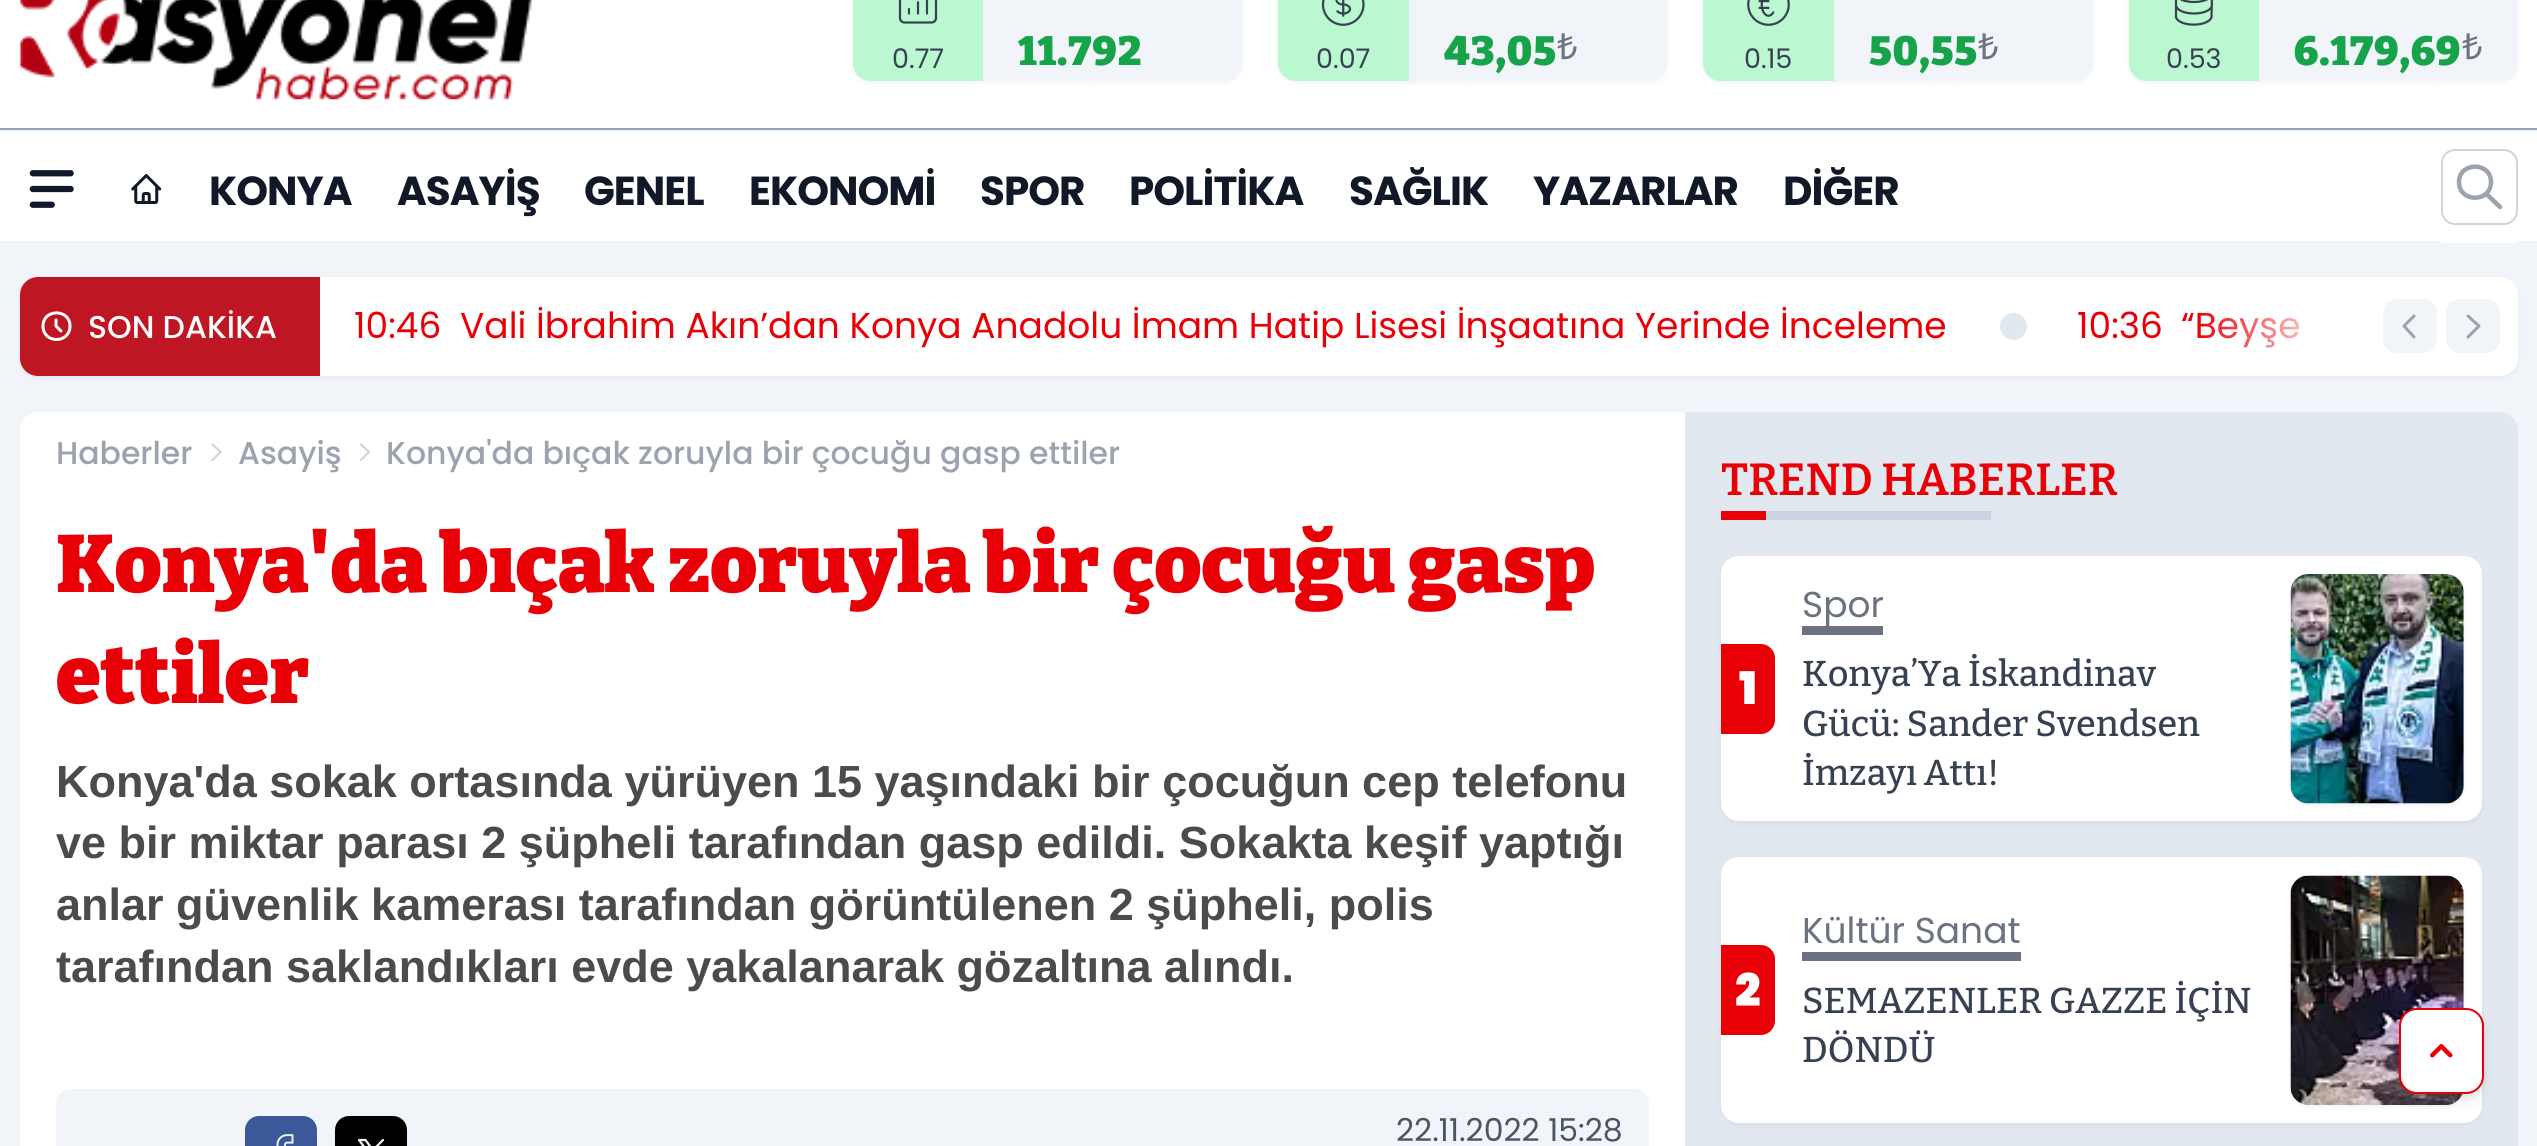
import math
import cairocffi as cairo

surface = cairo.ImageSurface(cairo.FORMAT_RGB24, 2537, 1146)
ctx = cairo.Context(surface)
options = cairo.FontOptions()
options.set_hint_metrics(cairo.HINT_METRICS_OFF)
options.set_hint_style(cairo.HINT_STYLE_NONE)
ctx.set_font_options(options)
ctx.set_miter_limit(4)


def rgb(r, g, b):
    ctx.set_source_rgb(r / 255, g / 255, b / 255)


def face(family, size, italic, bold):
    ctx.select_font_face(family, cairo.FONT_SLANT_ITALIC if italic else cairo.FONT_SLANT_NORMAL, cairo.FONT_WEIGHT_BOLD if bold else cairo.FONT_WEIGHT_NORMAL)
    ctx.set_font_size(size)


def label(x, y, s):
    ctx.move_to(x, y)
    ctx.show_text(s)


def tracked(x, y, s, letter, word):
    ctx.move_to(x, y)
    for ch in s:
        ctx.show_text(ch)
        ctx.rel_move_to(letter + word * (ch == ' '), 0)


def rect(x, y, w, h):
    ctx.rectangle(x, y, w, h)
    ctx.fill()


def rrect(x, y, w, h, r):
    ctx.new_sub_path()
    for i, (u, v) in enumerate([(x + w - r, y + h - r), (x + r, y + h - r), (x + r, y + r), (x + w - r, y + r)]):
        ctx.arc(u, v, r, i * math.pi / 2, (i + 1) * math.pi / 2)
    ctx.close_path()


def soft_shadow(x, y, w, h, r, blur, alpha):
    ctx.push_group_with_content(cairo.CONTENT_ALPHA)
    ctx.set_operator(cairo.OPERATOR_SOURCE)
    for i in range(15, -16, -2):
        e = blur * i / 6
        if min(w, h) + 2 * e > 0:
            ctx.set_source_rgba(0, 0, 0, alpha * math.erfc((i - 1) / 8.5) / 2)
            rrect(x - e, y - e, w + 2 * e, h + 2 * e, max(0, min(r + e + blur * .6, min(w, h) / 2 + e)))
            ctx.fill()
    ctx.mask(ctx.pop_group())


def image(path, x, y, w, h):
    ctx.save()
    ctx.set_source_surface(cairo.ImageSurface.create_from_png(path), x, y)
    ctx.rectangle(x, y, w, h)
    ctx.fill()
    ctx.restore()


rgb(241, 245, 249)
ctx.paint()
rgb(255, 255, 255)
rect(0, 0, 2537, 128)
image('image0.png', 20, 0, 512, 100)
rgb(0, 0, 0)
soft_shadow(853, -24, 389, 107, 18, 2, 0.05)
rgb(241, 245, 249)
rrect(853, -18, 389, 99, 18)
ctx.fill()
rgb(187, 247, 208)
ctx.new_path()
ctx.move_to(871, -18)
ctx.line_to(983, -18)
ctx.line_to(983, 81)
ctx.line_to(871, 81)
ctx.curve_to(861, 81, 853, 73, 853, 63)
ctx.line_to(853, 0)
ctx.curve_to(853, -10, 861, -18, 871, -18)
ctx.close_path()
ctx.fill()
image('image1.png', 898, 0, 40, 24)
face('Poppins', 27, 0, 0)
rgb(55, 65, 81)
label(892, 68, '0.77')
face('Bitter Thin', 40.5, 0, 0)
rgb(22, 163, 74)
tracked(1018, 65, '11.792', 1, 0)
rgb(0, 0, 0)
soft_shadow(1278, -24, 389, 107, 18, 2, 0.05)
rgb(241, 245, 249)
rrect(1278, -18, 389, 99, 18)
ctx.fill()
rgb(187, 247, 208)
ctx.new_path()
ctx.move_to(1296, -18)
ctx.line_to(1409, -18)
ctx.line_to(1409, 81)
ctx.line_to(1296, 81)
ctx.curve_to(1286, 81, 1278, 73, 1278, 63)
ctx.line_to(1278, 0)
ctx.curve_to(1278, -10, 1286, -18, 1296, -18)
ctx.close_path()
ctx.fill()
image('image2.png', 1321, 0, 44, 26)
face('Poppins', 27, 0, 0)
rgb(55, 65, 81)
label(1316, 68, '0.07')
face('Bitter Thin', 40.5, 0, 0)
rgb(22, 163, 74)
tracked(1444, 65, '43,05', 1, 0)
face('Noto Sans', 36, 0, 0)
rgb(107, 114, 128)
tracked(1557, 59, '₺', 1, 0)
rgb(0, 0, 0)
soft_shadow(1703, -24, 390, 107, 18, 2, 0.05)
rgb(241, 245, 249)
rrect(1703, -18, 390, 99, 18)
ctx.fill()
rgb(187, 247, 208)
ctx.new_path()
ctx.move_to(1721, -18)
ctx.line_to(1834, -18)
ctx.line_to(1834, 81)
ctx.line_to(1721, 81)
ctx.curve_to(1711, 81, 1703, 73, 1703, 63)
ctx.line_to(1703, 0)
ctx.curve_to(1703, -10, 1711, -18, 1721, -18)
ctx.close_path()
ctx.fill()
image('image3.png', 1747, 0, 43, 26)
face('Poppins', 27, 0, 0)
rgb(55, 65, 81)
label(1744, 68, '0.15')
face('Bitter Thin', 40.5, 0, 0)
rgb(22, 163, 74)
tracked(1869, 65, '50,55', 1, 0)
face('Noto Sans', 36, 0, 0)
rgb(107, 114, 128)
tracked(1978, 59, '₺', 1, 0)
rgb(0, 0, 0)
soft_shadow(2129, -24, 389, 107, 18, 2, 0.05)
rgb(241, 245, 249)
rrect(2129, -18, 389, 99, 18)
ctx.fill()
rgb(187, 247, 208)
ctx.new_path()
ctx.move_to(2147, -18)
ctx.line_to(2259, -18)
ctx.line_to(2259, 81)
ctx.line_to(2147, 81)
ctx.curve_to(2137, 81, 2129, 73, 2129, 63)
ctx.line_to(2129, 0)
ctx.curve_to(2129, -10, 2137, -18, 2147, -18)
ctx.close_path()
ctx.fill()
ctx.new_path()
ctx.move_to(2176, -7)
ctx.line_to(2176, 17.5)
ctx.curve_to(2180, 27, 2207.5, 27, 2211.5, 17.5)
ctx.line_to(2212, -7)
ctx.move_to(2176, -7)
ctx.curve_to(2176, 5, 2212, 5, 2212, -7)
ctx.move_to(2176, -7)
ctx.curve_to(2176, -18.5, 2212, -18.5, 2212, -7)
ctx.move_to(2212, 4.5)
ctx.curve_to(2212, 16.5, 2176, 16.5, 2176, 4.5)
rgb(55, 65, 81)
ctx.set_line_width(2.2)
ctx.set_line_cap(cairo.LINE_CAP_ROUND)
ctx.set_line_join(cairo.LINE_JOIN_ROUND)
ctx.stroke()
face('Poppins', 27, 0, 0)
label(2166, 68, '0.53')
face('Bitter Thin', 40.5, 0, 0)
rgb(22, 163, 74)
tracked(2294, 65, '6.179,69', 1, 0)
face('Noto Sans', 36, 0, 0)
rgb(107, 114, 128)
tracked(2462, 59, '₺', 1, 0)
rgb(255, 255, 255)
rect(0, 131, 2537, 110)
rgb(148, 163, 184)
rect(0, 128, 2537, 2)
image('image4.png', 29, 170, 45, 38)
image('image5.png', 131, 174, 31, 30)
face('Poppins', 40.5, 0, 1)
rgb(17, 24, 39)
tracked(209, 205, 'KONYA', -1, 0)
tracked(397, 205, 'ASAYİŞ', -1, 0)
tracked(584, 205, 'GENEL', -1, 0)
tracked(749, 205, 'EKONOMİ', -1, 0)
tracked(980, 205, 'SPOR', -1, 0)
tracked(1129, 205, 'POLİTİKA', -1, 0)
tracked(1349, 205, 'SAĞLIK', -1, 0)
tracked(1533, 205, 'YAZARLAR', -1, 0)
tracked(1783, 205, 'DİĞER', -1, 0)
rgb(255, 255, 255)
rect(2441, 241, 77, 2)
rrect(2442, 150, 75, 74, 13)
rgb(203, 213, 225)
ctx.set_line_width(2)
ctx.set_line_cap(cairo.LINE_CAP_BUTT)
ctx.set_line_join(cairo.LINE_JOIN_MITER)
ctx.stroke()
ctx.new_path()
ctx.move_to(2500, 207)
ctx.line_to(2486, 193.5)
ctx.move_to(2491, 182)
ctx.curve_to(2491, 203, 2459, 203, 2459, 182)
ctx.curve_to(2459, 161.5, 2491, 161.5, 2491, 182)
ctx.close_path()
rgb(156, 163, 175)
ctx.set_line_width(4.5)
ctx.set_line_cap(cairo.LINE_CAP_ROUND)
ctx.set_line_join(cairo.LINE_JOIN_ROUND)
ctx.stroke()
rgb(0, 0, 0)
soft_shadow(20, 279, 2498, 99, 18, 2, 0.05)
rgb(255, 255, 255)
rrect(20, 277, 2498, 99, 18)
ctx.fill()
rgb(190, 22, 34)
ctx.new_path()
ctx.move_to(38, 277)
ctx.line_to(320, 277)
ctx.line_to(320, 376)
ctx.line_to(38, 376)
ctx.curve_to(28, 376, 20, 368, 20, 358)
ctx.line_to(20, 295)
ctx.curve_to(20, 285, 28, 277, 38, 277)
ctx.close_path()
ctx.fill()
ctx.new_path()
ctx.move_to(56, 320)
ctx.line_to(56, 326)
ctx.line_to(61, 331)
ctx.move_to(70, 326)
ctx.curve_to(70, 344, 43, 344, 43, 326)
ctx.curve_to(43, 308.5, 70, 308.5, 70, 326)
ctx.close_path()
rgb(255, 255, 255)
ctx.set_line_width(3)
ctx.stroke()
face('Poppins Medium', 31.5, 0, 0)
label(88, 338, 'SON DAKİKA')
face('Poppins', 36, 0, 0)
rgb(233, 0, 6)
label(354, 338, '10:46')
label(460, 338, 'Vali İbrahim Akın’dan Konya Anadolu İmam Hatip Lisesi İnşaatına Yerinde İnceleme')
rgb(226, 232, 240)
ctx.new_path()
ctx.arc(2013.5, 326.5, 13.5, 0, 2 * math.pi)
ctx.fill()
rgb(233, 0, 6)
label(2077, 338, '10:36')
label(2181, 338, '“Beyşe')
gradient = cairo.LinearGradient(2340, 349, 2196, 349)
gradient.add_color_stop_rgba(0, 1, 1, 1, 1)
gradient.add_color_stop_rgba(1, 1, 1, 1, 0)
ctx.set_source(gradient)
rect(2199, 313, 100, 35)
rgb(241, 245, 249)
rrect(2383, 299, 54, 54, 14)
ctx.fill()
ctx.new_path()
ctx.move_to(2414, 337)
ctx.line_to(2404, 326)
ctx.line_to(2414, 316)
rgb(156, 163, 175)
ctx.stroke()
rgb(241, 245, 249)
rrect(2446, 299, 54, 54, 14)
ctx.fill()
ctx.new_path()
ctx.move_to(2468, 316)
ctx.line_to(2479, 326)
ctx.line_to(2468, 337)
rgb(156, 163, 175)
ctx.stroke()
rgb(255, 255, 255)
rrect(20, 412, 2498, 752, 18)
ctx.fill()
face('Poppins Medium', 31.5, 0, 0)
rgb(156, 163, 175)
label(56, 464, 'Haberler')
ctx.new_path()
ctx.move_to(212.5, 444.5)
ctx.line_to(220.5, 452)
ctx.line_to(212.5, 460)
rgb(209, 213, 219)
ctx.set_line_width(2.2)
ctx.stroke()
rgb(156, 163, 175)
label(238, 464, 'Asayiş')
ctx.new_path()
ctx.move_to(361, 444.5)
ctx.line_to(369, 452)
ctx.line_to(361, 460)
rgb(209, 213, 219)
ctx.stroke()
rgb(156, 163, 175)
label(386, 464, 'Konya\'da bıçak zoruyla bir çocuğu gasp ettiler')
face('Bitter Thin', 81, 0, 0)
rgb(233, 0, 6)
label(56, 592, 'Konya\'da bıçak zoruyla bir çocuğu gasp')
label(56, 703, 'ettiler')
face('Liberation Sans', 45, 0, 1)
rgb(75, 75, 75)
label(56, 797, 'Konya\'da sokak ortasında yürüyen 15 yaşındaki bir çocuğun cep telefonu')
label(56, 858, 've bir miktar parası 2 şüpheli tarafından gasp edildi. Sokakta keşif yaptığı')
label(56, 920, 'anlar güvenlik kamerası tarafından görüntülenen 2 şüpheli, polis')
label(56, 982, 'tarafından saklandıkları evde yakalanarak gözaltına alındı.')
rgb(241, 245, 249)
ctx.new_path()
ctx.move_to(70, 1089)
ctx.line_to(1635, 1089)
ctx.curve_to(1642.5, 1089, 1649, 1095.5, 1649, 1103)
ctx.line_to(1649, 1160)
ctx.line_to(56, 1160)
ctx.line_to(56, 1103)
ctx.curve_to(56, 1095.5, 62.5, 1089, 70, 1089)
ctx.close_path()
ctx.fill()
rgb(59, 89, 152)
rrect(245, 1116, 72, 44, 14)
ctx.fill()
image('image6.png', 276, 1134, 18, 12)
rgb(0, 0, 0)
rrect(335, 1116, 72, 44, 14)
ctx.fill()
ctx.new_path()
ctx.move_to(359, 1140)
ctx.line_to(377, 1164)
ctx.line_to(383, 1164)
ctx.line_to(365.5, 1140)
ctx.close_path()
ctx.move_to(359, 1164)
ctx.line_to(369.5, 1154)
ctx.move_to(373, 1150)
ctx.line_to(383, 1140)
rgb(243, 244, 246)
ctx.stroke()
face('Poppins', 31.5, 0, 0)
rgb(75, 85, 99)
label(1396, 1141, '22.11.2022 15:28')
rgb(226, 232, 240)
ctx.new_path()
ctx.move_to(1685, 412)
ctx.line_to(2500, 412)
ctx.curve_to(2510, 412, 2518, 420, 2518, 430)
ctx.line_to(2518, 1146)
ctx.curve_to(2518, 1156, 2510, 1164, 2500, 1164)
ctx.line_to(1685, 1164)
ctx.close_path()
ctx.fill()
face('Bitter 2 Thin', 45, 0, 0)
rgb(233, 0, 6)
label(1721, 495, 'TREND HABERLER')
rect(1721, 511, 45, 9)
rgb(203, 213, 225)
rect(1766, 511, 225, 9)
rgb(0, 0, 0)
soft_shadow(1721, 558, 761, 266, 18, 2, 0.05)
rgb(255, 255, 255)
rrect(1721, 556, 761, 265, 18)
ctx.fill()
rgb(233, 0, 6)
ctx.new_path()
ctx.move_to(1721, 644)
ctx.line_to(1761, 644)
ctx.curve_to(1768.5, 644, 1775, 650.5, 1775, 658)
ctx.line_to(1775, 720)
ctx.curve_to(1775, 727.5, 1768.5, 734, 1761, 734)
ctx.line_to(1721, 734)
ctx.close_path()
ctx.fill()
face('Poppins Black', 45, 0, 0)
rgb(255, 255, 255)
label(1739, 704, '1')
rgb(107, 114, 128)
rect(1802, 626, 81, 9)
face('Poppins', 36, 0, 0)
label(1802, 617, 'Spor')
face('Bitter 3 Thin', 36, 0, 0)
rgb(55, 65, 81)
label(1802, 686, 'Konya’Ya İskandinav')
label(1802, 736, 'Gücü: Sander Svendsen')
label(1802, 785, 'İmzayı Attı!')
rgb(0, 0, 0)
soft_shadow(2291, 576, 173, 230, 18, 2, 0.05)
image('image7.png', 2290, 574, 174, 230)
soft_shadow(1721, 860, 761, 265, 18, 2, 0.05)
rgb(255, 255, 255)
rrect(1721, 857, 761, 266, 18)
ctx.fill()
rgb(233, 0, 6)
ctx.new_path()
ctx.move_to(1721, 945)
ctx.line_to(1761, 945)
ctx.curve_to(1768.5, 945, 1775, 951.5, 1775, 959)
ctx.line_to(1775, 1021)
ctx.curve_to(1775, 1028.5, 1768.5, 1035, 1761, 1035)
ctx.line_to(1721, 1035)
ctx.close_path()
ctx.fill()
face('Poppins Black', 45, 0, 0)
rgb(255, 255, 255)
label(1735, 1006, '2')
face('Poppins', 36, 0, 0)
rgb(107, 114, 128)
label(1802, 943, 'Kültür Sanat')
rect(1802, 952, 219, 9)
face('Bitter 3 Thin', 36, 0, 0)
rgb(55, 65, 81)
label(1802, 1013, 'SEMAZENLER GAZZE İÇİN')
label(1802, 1062, 'DÖNDÜ')
rgb(0, 0, 0)
soft_shadow(2291, 878, 173, 229, 18, 2, 0.05)
image('image8.png', 2290, 875, 174, 230)
soft_shadow(2403, 1017, 77, 77, 14, 4.5, 0.1)
soft_shadow(2401, 1019, 81, 81, 16, 7, 0.1)
rgb(255, 255, 255)
rrect(2400, 1009, 83, 84, 17)
ctx.fill_preserve()
rgb(233, 0, 6)
ctx.set_line_width(2)
ctx.set_line_cap(cairo.LINE_CAP_BUTT)
ctx.set_line_join(cairo.LINE_JOIN_MITER)
ctx.stroke()
image('image9.png', 2430, 1044, 23, 14)
surface.write_to_png('render.png')
